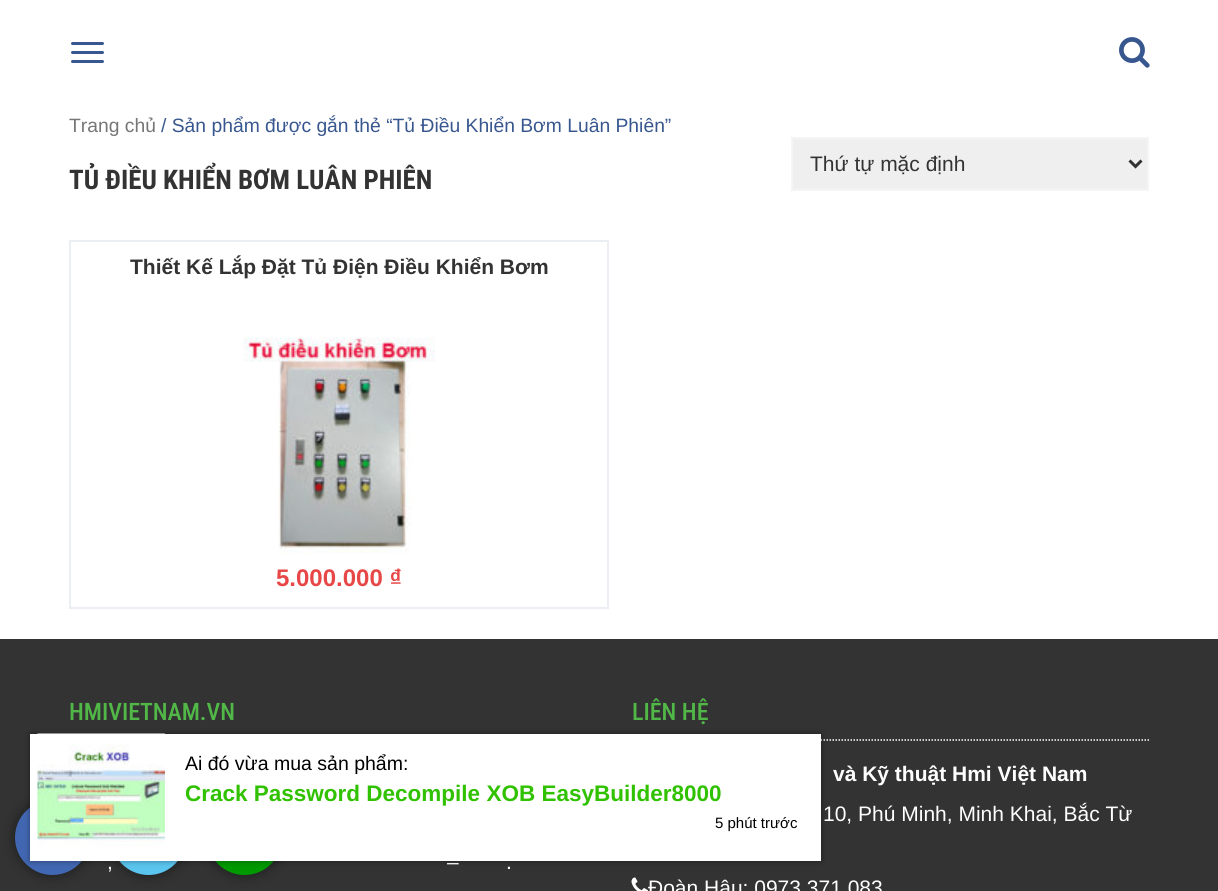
import math
import cairocffi as cairo

surface = cairo.ImageSurface(cairo.FORMAT_RGB24, 1218, 891)
ctx = cairo.Context(surface)
options = cairo.FontOptions()
options.set_hint_metrics(cairo.HINT_METRICS_OFF)
options.set_hint_style(cairo.HINT_STYLE_NONE)
ctx.set_font_options(options)
ctx.set_miter_limit(4)


def rgb(r, g, b):
    ctx.set_source_rgb(r / 255, g / 255, b / 255)


def face(family, size, italic, bold):
    ctx.select_font_face(family, cairo.FONT_SLANT_ITALIC if italic else cairo.FONT_SLANT_NORMAL, cairo.FONT_WEIGHT_BOLD if bold else cairo.FONT_WEIGHT_NORMAL)
    ctx.set_font_size(size)


def label(x, y, s):
    ctx.move_to(x, y)
    ctx.show_text(s)


def rect(x, y, w, h):
    ctx.rectangle(x, y, w, h)
    ctx.fill()


def rrect(x, y, w, h, r):
    ctx.new_sub_path()
    for i, (u, v) in enumerate([(x + w - r, y + h - r), (x + r, y + h - r), (x + r, y + r), (x + w - r, y + r)]):
        ctx.arc(u, v, r, i * math.pi / 2, (i + 1) * math.pi / 2)
    ctx.close_path()


def soft_shadow(x, y, w, h, r, blur, alpha):
    ctx.push_group_with_content(cairo.CONTENT_ALPHA)
    ctx.set_operator(cairo.OPERATOR_SOURCE)
    for i in range(15, -16, -2):
        e = blur * i / 6
        if min(w, h) + 2 * e > 0:
            ctx.set_source_rgba(0, 0, 0, alpha * math.erfc((i - 1) / 8.5) / 2)
            rrect(x - e, y - e, w + 2 * e, h + 2 * e, max(0, min(r + e + blur * .6, min(w, h) / 2 + e)))
            ctx.fill()
    ctx.mask(ctx.pop_group())


def image(path, x, y, w, h):
    ctx.save()
    ctx.set_source_surface(cairo.ImageSurface.create_from_png(path), x, y)
    ctx.rectangle(x, y, w, h)
    ctx.fill()
    ctx.restore()


rgb(255, 255, 255)
ctx.paint()
rgb(56, 87, 143)
rrect(71, 42, 33, 3, 1.5)
ctx.fill()
rrect(71, 51, 33, 3, 1.5)
ctx.fill()
rrect(71, 60, 33, 3, 1.5)
ctx.fill()
image('image0.png', 1119, 37, 31, 31)
face('Liberation Sans', 19.3, 0, 0)
rgb(118, 118, 118)
label(69, 132, 'Trang chủ')
rgb(56, 87, 143)
label(161, 132, '/ Sản phẩm được gắn thẻ “Tủ Điều Khiển Bơm Luân Phiên”')
face('Roboto Condensed', 27, 0, 1)
rgb(51, 51, 51)
label(69, 189, 'TỦ ĐIỀU KHIỂN BƠM LUÂN PHIÊN')
rgb(239, 239, 239)
ctx.rectangle(792, 138, 356, 52)
ctx.fill_preserve()
rgb(245, 245, 245)
ctx.stroke()
ctx.new_path()
ctx.move_to(1129.5, 160.5)
ctx.line_to(1135.5, 166.5)
ctx.line_to(1141.5, 160.5)
rgb(51, 51, 51)
ctx.set_line_width(3)
ctx.stroke()
face('Liberation Sans', 21, 0, 0)
label(810, 171, 'Thứ tự mặc định')
ctx.rectangle(70, 241, 538, 367)
rgb(235, 238, 242)
ctx.set_line_width(2)
ctx.stroke()
face('Liberation Sans', 21, 0, 1)
rgb(51, 51, 51)
label(130, 274, 'Thiết Kế Lắp Đặt Tủ Điện Điều Khiển Bơm')
image('image1.png', 243, 337, 192, 217)
face('Liberation Sans', 24, 0, 1)
rgb(231, 72, 71)
label(276, 586, '5.000.000 ₫')
rgb(51, 51, 51)
rect(0, 639, 1218, 252)
face('Roboto Condensed Medium', 24, 0, 0)
rgb(81, 184, 72)
label(69, 720, 'HMIVIETNAM.VN')
face('Liberation Sans', 21, 0, 0)
rgb(255, 255, 255)
label(447, 869, '–')
label(107, 869, ',')
label(506, 869, '.')
ctx.new_path()
ctx.move_to(631.5, 740)
ctx.line_to(1149, 740)
ctx.set_line_width(1.5)
ctx.set_dash([1.5, 1.5])
ctx.stroke()
face('Roboto Condensed Medium', 24, 0, 0)
rgb(81, 184, 72)
label(632, 720, 'LIÊN HỆ')
face('Liberation Sans', 21, 0, 1)
rgb(255, 255, 255)
label(833, 781, 'và Kỹ thuật Hmi Việt Nam')
face('Liberation Sans', 21, 0, 0)
label(823, 821, '10, Phú Minh, Minh Khai, Bắc Từ')
image('image2.png', 631, 877, 17, 14)
label(648, 895, 'Đoàn Hậu: 0973.371.083')
rgb(0, 0, 0)
soft_shadow(18, 803, 69, 69, 34.5, 7.5, 0.7)
rgb(66, 103, 178)
ctx.arc(52.5, 837.5, 37.5, 0, 2 * math.pi)
ctx.fill()
rgb(0, 0, 0)
soft_shadow(114, 803, 69, 69, 34.5, 7.5, 0.7)
rgb(90, 197, 239)
ctx.arc(148.5, 837.5, 37.5, 0, 2 * math.pi)
ctx.fill()
rgb(0, 0, 0)
soft_shadow(210, 803, 69, 69, 34.5, 7.5, 0.7)
rgb(0, 153, 0)
ctx.arc(244.5, 837.5, 37.5, 0, 2 * math.pi)
ctx.fill()
rgb(0, 0, 0)
soft_shadow(30, 734, 791, 127, 0, 3, 0.4)
rgb(255, 255, 255)
rect(30, 734, 791, 127)
image('image3.png', 37, 733, 128, 113)
face('Liberation Sans', 19.5, 0, 0)
rgb(0, 0, 0)
label(185, 770, 'Ai đó vừa mua sản phẩm:')
face('Liberation Sans', 22.5, 0, 1)
rgb(48, 193, 0)
label(185, 801, 'Crack Password Decompile XOB EasyBuilder8000')
face('Liberation Sans', 15, 0, 0)
rgb(0, 0, 0)
label(715, 828, '5 phút trước')
surface.write_to_png('render.png')
